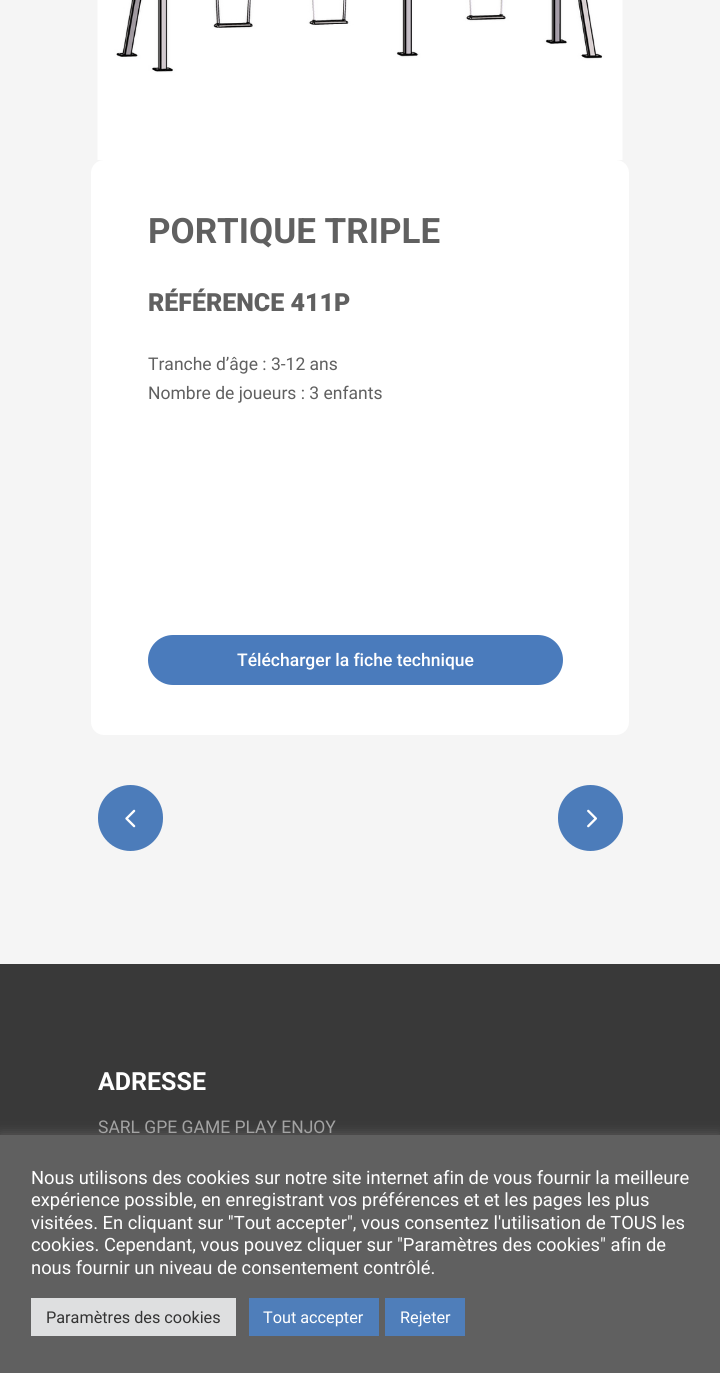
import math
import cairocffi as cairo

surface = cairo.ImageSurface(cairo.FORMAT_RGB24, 720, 1373)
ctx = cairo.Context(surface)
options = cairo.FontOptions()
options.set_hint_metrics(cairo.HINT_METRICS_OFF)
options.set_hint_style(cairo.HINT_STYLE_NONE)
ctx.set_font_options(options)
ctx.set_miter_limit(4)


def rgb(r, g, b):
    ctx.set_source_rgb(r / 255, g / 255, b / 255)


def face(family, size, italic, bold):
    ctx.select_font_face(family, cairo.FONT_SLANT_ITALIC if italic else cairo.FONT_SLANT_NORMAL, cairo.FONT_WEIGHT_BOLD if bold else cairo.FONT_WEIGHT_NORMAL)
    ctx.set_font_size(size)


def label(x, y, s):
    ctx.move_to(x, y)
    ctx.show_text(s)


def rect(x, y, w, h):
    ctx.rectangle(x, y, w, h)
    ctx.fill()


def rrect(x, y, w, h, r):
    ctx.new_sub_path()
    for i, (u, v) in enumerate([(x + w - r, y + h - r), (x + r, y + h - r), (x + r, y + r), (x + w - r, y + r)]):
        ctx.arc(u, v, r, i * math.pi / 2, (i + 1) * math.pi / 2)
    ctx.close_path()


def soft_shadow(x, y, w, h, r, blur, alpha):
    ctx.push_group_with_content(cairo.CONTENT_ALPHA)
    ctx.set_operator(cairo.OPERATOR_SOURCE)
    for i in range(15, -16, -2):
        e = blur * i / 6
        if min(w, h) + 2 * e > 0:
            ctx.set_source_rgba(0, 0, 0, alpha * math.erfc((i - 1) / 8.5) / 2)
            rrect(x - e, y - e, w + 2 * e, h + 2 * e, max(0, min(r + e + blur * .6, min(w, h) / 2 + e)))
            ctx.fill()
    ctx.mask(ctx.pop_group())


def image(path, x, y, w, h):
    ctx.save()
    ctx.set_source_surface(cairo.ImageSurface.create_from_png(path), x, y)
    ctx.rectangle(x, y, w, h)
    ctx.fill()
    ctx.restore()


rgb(245, 245, 245)
ctx.paint()
image('image0.png', 97, 0, 526, 160)
rgb(255, 255, 255)
rrect(91, 160, 538, 575, 13)
ctx.fill()
face('Roboto', 35, 0, 1)
rgb(96, 96, 96)
label(148, 243, 'PORTIQUE TRIPLE')
face('Roboto Black', 25, 0, 0)
label(148, 311, 'RÉFÉRENCE 411P')
face('Roboto', 17.5, 0, 0)
label(148, 370, 'Tranche d’âge : 3-12 ans')
label(148, 399, 'Nombre de joueurs : 3 enfants')
rgb(74, 123, 188)
rrect(148, 635, 415, 50, 25)
ctx.fill()
face('Roboto Medium', 17.5, 0, 0)
rgb(255, 255, 255)
label(237, 666, 'Télécharger la fiche technique')
rgb(76, 124, 186)
rrect(98, 785, 65, 66, 32.5)
ctx.fill()
image('image1.png', 125, 809, 11, 19)
rrect(558, 785, 65, 66, 32.5)
ctx.fill()
image('image2.png', 587, 809, 10, 19)
rgb(57, 57, 57)
rect(0, 964, 720, 171)
face('Roboto', 25, 0, 1)
rgb(255, 255, 255)
label(98, 1090, 'ADRESSE')
face('Roboto', 17.5, 0, 0)
rgb(162, 162, 162)
label(98, 1133, 'SARL GPE GAME PLAY ENJOY')
rgb(172, 171, 171)
soft_shadow(0, 1134, 720, 239, 0, 6, 0.3)
rgb(96, 96, 96)
rect(0, 1135, 720, 238)
face('Roboto', 18.35, 0, 0)
rgb(255, 255, 255)
label(31, 1184, 'Nous utilisons des cookies sur notre site internet afin de vous fournir la meilleure')
label(31, 1206, 'expérience possible, en enregistrant vos préférences et et les pages les plus')
label(31, 1229, 'visitées. En cliquant sur "Tout accepter", vous consentez l\'utilisation de TOUS les')
label(31, 1251, 'cookies. Cependant, vous pouvez cliquer sur "Paramètres des cookies" afin de')
label(31, 1274, 'nous fournir un niveau de consentement contrôlé.')
rgb(222, 223, 224)
rect(31, 1298, 205, 38)
face('Roboto', 16.25, 0, 0)
rgb(51, 51, 51)
label(46, 1323, 'Paramètres des cookies')
rgb(79, 126, 186)
rect(249, 1298, 130, 38)
rgb(255, 255, 255)
label(263, 1323, 'Tout accepter')
rgb(79, 126, 186)
rect(385, 1298, 80, 38)
rgb(255, 255, 255)
label(400, 1323, 'Rejeter')
surface.write_to_png('render.png')
